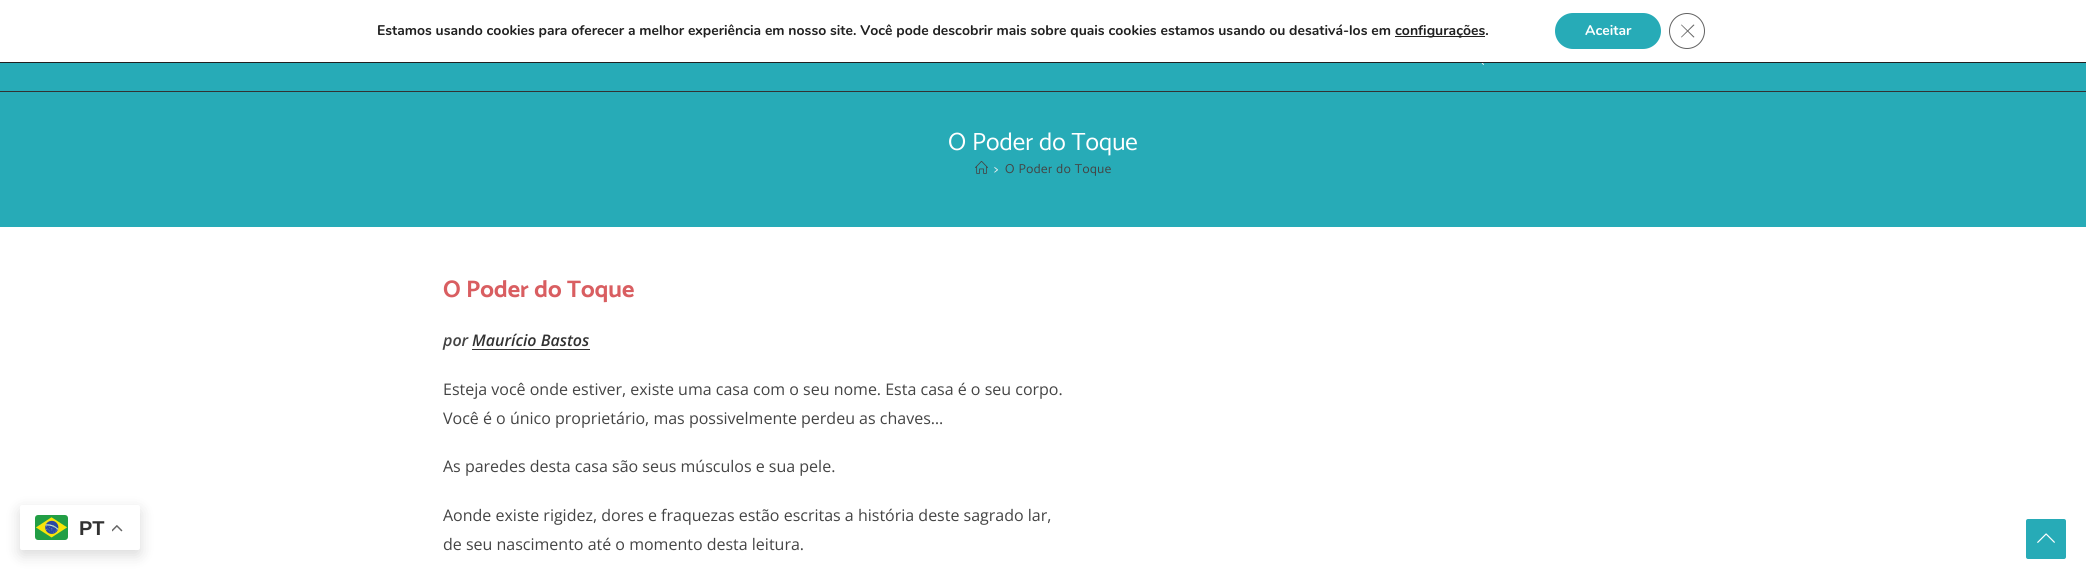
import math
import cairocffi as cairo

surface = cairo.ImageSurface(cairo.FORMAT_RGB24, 2086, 579)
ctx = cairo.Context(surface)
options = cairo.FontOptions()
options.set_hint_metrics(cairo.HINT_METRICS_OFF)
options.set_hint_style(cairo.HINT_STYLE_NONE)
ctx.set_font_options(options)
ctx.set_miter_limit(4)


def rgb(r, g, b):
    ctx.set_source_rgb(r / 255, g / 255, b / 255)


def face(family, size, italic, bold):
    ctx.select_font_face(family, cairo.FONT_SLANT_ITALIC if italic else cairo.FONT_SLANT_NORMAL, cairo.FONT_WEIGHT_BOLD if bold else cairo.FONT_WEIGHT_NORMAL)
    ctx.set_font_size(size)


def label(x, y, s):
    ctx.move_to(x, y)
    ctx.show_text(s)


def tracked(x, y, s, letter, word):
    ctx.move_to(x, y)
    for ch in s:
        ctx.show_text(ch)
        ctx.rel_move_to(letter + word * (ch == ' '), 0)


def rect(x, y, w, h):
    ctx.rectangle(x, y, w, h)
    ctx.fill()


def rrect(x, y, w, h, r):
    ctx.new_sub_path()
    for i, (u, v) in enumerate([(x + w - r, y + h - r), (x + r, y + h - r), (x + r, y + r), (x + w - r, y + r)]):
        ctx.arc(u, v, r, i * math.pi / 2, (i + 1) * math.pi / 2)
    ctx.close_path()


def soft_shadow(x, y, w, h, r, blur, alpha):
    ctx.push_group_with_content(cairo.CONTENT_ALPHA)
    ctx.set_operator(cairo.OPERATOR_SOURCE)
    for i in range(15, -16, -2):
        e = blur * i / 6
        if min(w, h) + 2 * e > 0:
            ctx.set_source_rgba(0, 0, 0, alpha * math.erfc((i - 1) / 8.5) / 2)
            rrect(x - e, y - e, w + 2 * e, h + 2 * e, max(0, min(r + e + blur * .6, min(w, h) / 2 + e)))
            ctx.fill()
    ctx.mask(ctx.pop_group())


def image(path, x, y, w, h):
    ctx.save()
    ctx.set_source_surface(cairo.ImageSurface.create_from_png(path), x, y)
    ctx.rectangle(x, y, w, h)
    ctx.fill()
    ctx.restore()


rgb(255, 255, 255)
ctx.paint()
rgb(32, 32, 32)
rect(0, 62, 2086, 1)
face('Nunito', 14, 0, 1)
label(377, 35, 'Estamos usando cookies para oferecer a melhor experiência em nosso site. Você pode descobrir mais sobre quais cookies estamos usando ou desativá-los em')
rect(1395, 36, 90, 1)
label(1395, 35, 'configurações.')
rgb(39, 171, 183)
rrect(1555, 13, 106, 36, 18)
ctx.fill()
rgb(255, 255, 255)
label(1585, 35, 'Aceitar')
ctx.new_path()
ctx.arc(1687, 31, 17.5, 0, 2 * math.pi)
rgb(98, 98, 98)
ctx.set_line_width(1)
ctx.stroke()
ctx.new_path()
ctx.move_to(1693.5, 24.5)
ctx.line_to(1694.5, 25)
ctx.line_to(1681.5, 37.5)
ctx.line_to(1681, 37)
ctx.close_path()
ctx.fill()
ctx.new_path()
ctx.move_to(1681, 25)
ctx.line_to(1681.5, 24.5)
ctx.line_to(1694.5, 37)
ctx.line_to(1693.5, 37.5)
ctx.close_path()
ctx.fill()
rgb(0, 0, 0)
soft_shadow(20, 510, 120, 45, 2, 7.5, 0.15)
rgb(255, 255, 255)
rrect(20, 505, 120, 45, 2)
ctx.fill()
image('image0.png', 35, 515, 33, 25)
face('Liberation Sans', 20, 0, 1)
rgb(50, 50, 50)
label(79, 535, 'PT')
image('image1.png', 112, 525, 11, 7)
rect(0, 91, 2086, 1)
rgb(39, 171, 183)
rect(0, 63, 2086, 28)
image('image2.png', 1481, 63, 3, 2)
rect(0, 92, 2086, 135)
face('Catamaran', 25, 0, 0)
rgb(255, 255, 255)
label(948, 150, 'O Poder do Toque')
image('image3.png', 975, 161, 13, 13)
face('Catamaran', 13, 0, 0)
rgb(241, 241, 241)
tracked(994, 173, '>', 0.5, 0)
rgb(68, 68, 68)
tracked(1005, 173, 'O Poder do Toque', 0.5, 0)
face('Catamaran', 24, 0, 1)
rgb(217, 94, 97)
label(443, 297, 'O Poder do Toque')
face('Open Sans SemiBold', 16, 1, 0)
rgb(68, 68, 68)
label(443, 346, 'por')
rgb(50, 50, 50)
rect(472, 349, 118, 1)
label(472, 346, 'Maurício Bastos')
face('Open Sans', 16, 0, 0)
rgb(68, 68, 68)
label(443, 395, 'Esteja você onde estiver, existe uma casa com o seu nome. Esta casa é o seu corpo.')
label(443, 424, 'Você é o único proprietário, mas possivelmente perdeu as chaves…')
label(443, 472, 'As paredes desta casa são seus músculos e sua pele.')
label(443, 521, 'Aonde existe rigidez, dores e fraquezas estão escritas a história deste sagrado lar,')
label(443, 550, 'de seu nascimento até o momento desta leitura.')
rgb(39, 171, 183)
rrect(2026, 519, 40, 40, 2)
ctx.fill()
image('image4.png', 2037, 533, 18, 10)
surface.write_to_png('render.png')
